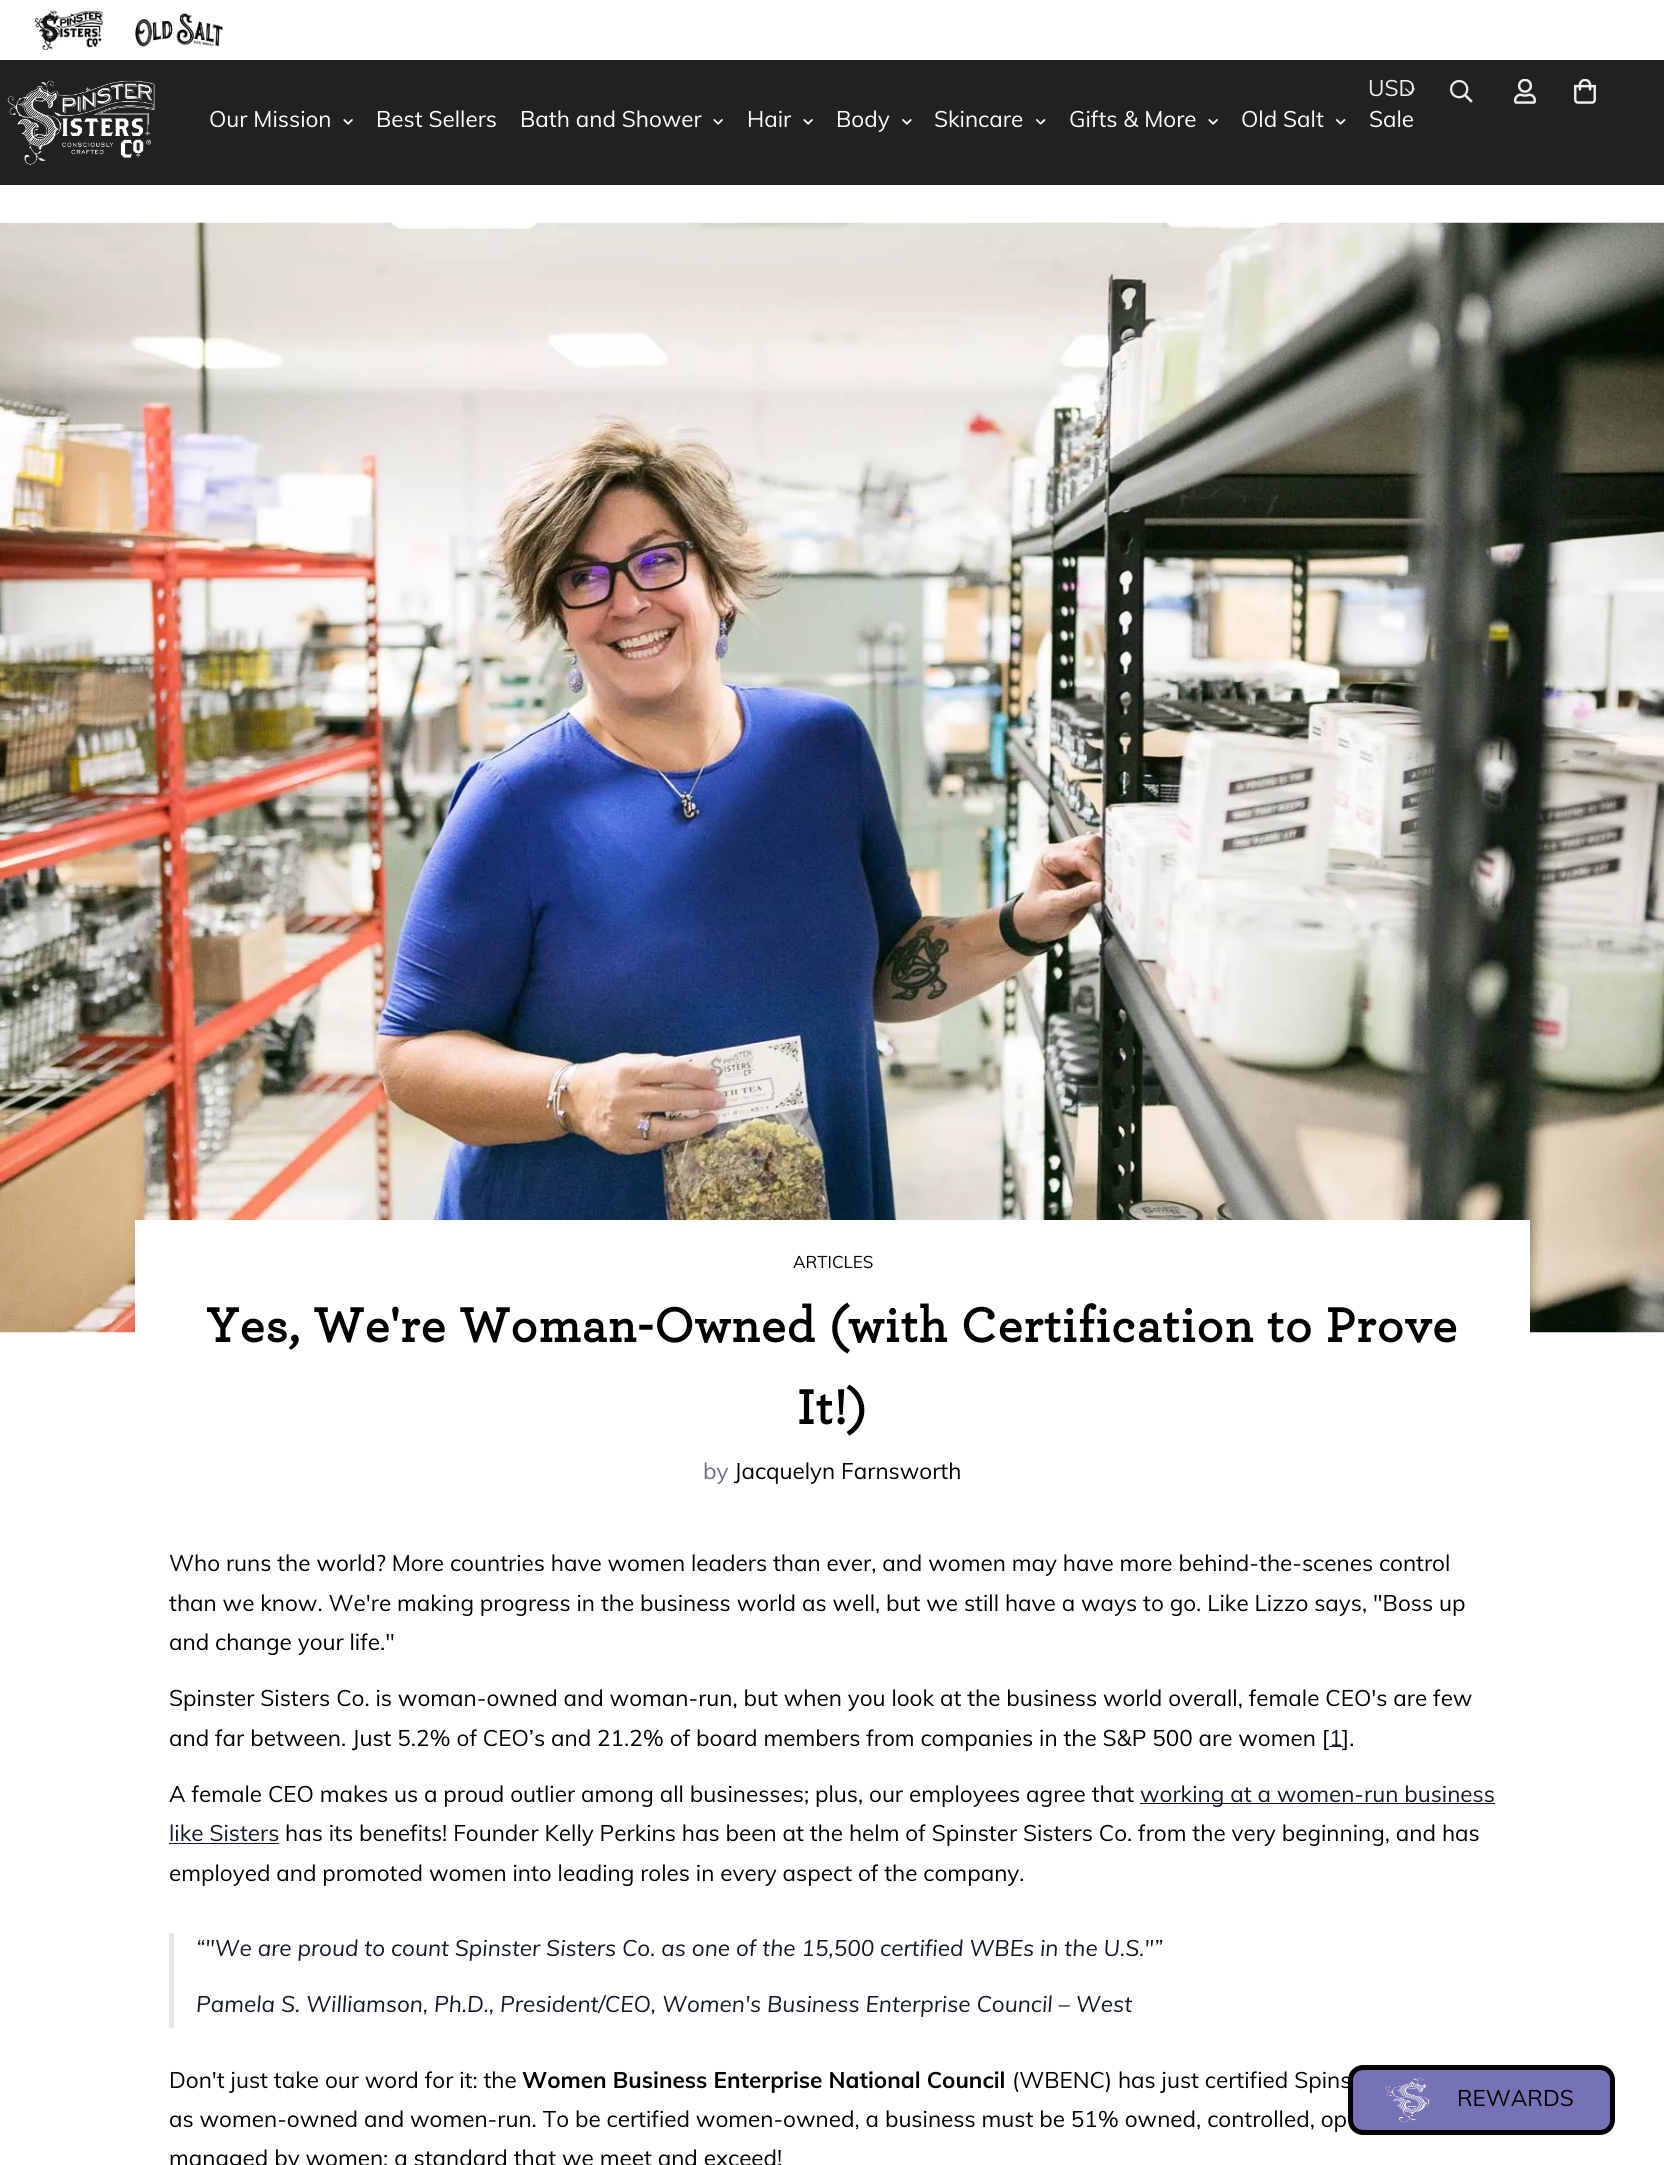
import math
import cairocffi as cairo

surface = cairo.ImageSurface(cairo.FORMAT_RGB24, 1664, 2165)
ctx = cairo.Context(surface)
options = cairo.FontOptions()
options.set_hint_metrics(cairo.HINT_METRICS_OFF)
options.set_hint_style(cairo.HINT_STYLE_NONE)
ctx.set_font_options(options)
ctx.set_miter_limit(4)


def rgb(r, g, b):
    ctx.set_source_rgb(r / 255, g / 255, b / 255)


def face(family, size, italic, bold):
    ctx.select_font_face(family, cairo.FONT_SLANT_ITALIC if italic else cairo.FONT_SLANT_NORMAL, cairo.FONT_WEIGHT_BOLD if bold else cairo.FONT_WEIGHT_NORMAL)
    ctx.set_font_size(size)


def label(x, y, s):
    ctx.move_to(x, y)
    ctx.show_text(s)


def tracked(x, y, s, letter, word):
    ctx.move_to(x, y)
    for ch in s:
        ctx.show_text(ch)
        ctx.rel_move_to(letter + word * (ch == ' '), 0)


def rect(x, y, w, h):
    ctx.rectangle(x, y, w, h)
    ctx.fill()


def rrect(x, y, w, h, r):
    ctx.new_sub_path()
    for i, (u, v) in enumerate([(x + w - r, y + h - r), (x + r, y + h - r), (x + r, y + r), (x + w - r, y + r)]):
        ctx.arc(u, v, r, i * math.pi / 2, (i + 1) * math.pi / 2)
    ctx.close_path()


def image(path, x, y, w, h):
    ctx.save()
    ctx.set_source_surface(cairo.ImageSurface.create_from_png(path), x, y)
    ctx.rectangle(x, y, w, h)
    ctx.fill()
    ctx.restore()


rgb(255, 255, 255)
ctx.paint()
image('image0.png', 35, 10, 68, 40)
image('image1.png', 135, 13, 88, 34)
rgb(33, 33, 33)
rect(0, 60, 1664, 125)
image('image2.png', 7, 80, 148, 85)
image('image3.png', 1405, 88, 10, 6)
face('Muli', 22.5, 0, 0)
rgb(239, 239, 239)
label(1368, 96, 'USD')
image('image4.png', 1450, 80, 23, 23)
image('image5.png', 1514, 79, 22, 25)
image('image6.png', 1574, 79, 22, 25)
rgb(255, 255, 255)
label(209, 127, 'Our Mission')
image('image7.png', 343, 119, 10, 6)
label(376, 127, 'Best Sellers')
label(520, 127, 'Bath and Shower')
image('image7.png', 713, 119, 10, 6)
label(747, 127, 'Hair')
image('image7.png', 803, 119, 10, 6)
label(836, 127, 'Body')
image('image8.png', 902, 119, 10, 6)
label(934, 127, 'Skincare')
image('image9.png', 1035, 119, 11, 6)
label(1069, 127, 'Gifts & More')
image('image7.png', 1208, 119, 10, 6)
label(1241, 127, 'Old Salt')
image('image9.png', 1335, 119, 11, 6)
label(1369, 127, 'Sale')
image('image10.png', 0, 222, 1664, 1111)
rect(135, 1220, 1395, 113)
face('Muli', 17, 0, 0)
rgb(0, 0, 0)
label(793, 1268, 'ARTICLES')
face('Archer', 50.6, 0, 1)
tracked(206, 1342, 'Yes, We\'re Woman-Owned (with Certification to Prove', 1.25, 0)
tracked(797, 1424, 'It!)', 1.25, 0)
face('Muli', 22.5, 0, 0)
rgb(107, 114, 128)
label(703, 1479, 'by')
rgb(0, 0, 0)
label(734, 1479, 'Jacquelyn Farnsworth')
label(169, 1571, 'Who runs the world? More countries have women leaders than ever, and women may have more behind-the-scenes control')
label(169, 1611, 'than we know. We\'re making progress in the business world as well, but we still have a ways to go. Like Lizzo says, "Boss up')
label(169, 1650, 'and change your life."')
label(169, 1706, 'Spinster Sisters Co. is woman-owned and woman-run, but when you look at the business world overall, female CEO\'s are few')
label(169, 1746, 'and far between. Just 5.2% of CEO’s and 21.2% of board members from companies in the S&P 500 are women [')
rgb(17, 24, 39)
label(1329, 1746, '1')
rect(1329, 1746, 14, 1)
rgb(0, 0, 0)
label(1342, 1746, '].')
label(169, 1802, 'A female CEO makes us a proud outlier among all businesses; plus, our employees agree that')
rgb(17, 24, 39)
rect(1140, 1803, 355, 1)
label(1140, 1802, 'working at a women-run business')
label(169, 1841, 'like Sisters')
rect(169, 1843, 110, 1)
rgb(0, 0, 0)
label(285, 1841, 'has its benefits! Founder Kelly Perkins has been at the helm of Spinster Sisters Co. from the very beginning, and has')
label(169, 1881, 'employed and promoted women into leading roles in every aspect of the company.')
rgb(229, 231, 235)
rect(169, 1933, 5, 95)
face('Muli', 22.5, 1, 0)
rgb(17, 24, 39)
label(196, 1956, '“"We are proud to count Spinster Sisters Co. as one of the 15,500 certified WBEs in the U.S."”')
label(196, 2012, 'Pamela S. Williamson, Ph.D., President/CEO, Women\'s Business Enterprise Council – West')
face('Muli', 22.5, 0, 0)
rgb(0, 0, 0)
label(169, 2088, 'Don\'t just take our word for it: the')
face('Muli', 22.5, 0, 1)
label(522, 2088, 'Women Business Enterprise National Council')
face('Muli', 22.5, 0, 0)
label(1012, 2088, '(WBENC) has just certified Spins')
label(169, 2127, 'as women-owned and women-run. To be certified women-owned, a business must be 51% owned, controlled, op')
label(169, 2166, 'managed by women; a standard that we meet and exceed!')
rgb(117, 115, 181)
rrect(1350.5, 2067.5, 262, 65, 12.5)
ctx.fill_preserve()
rgb(0, 0, 0)
ctx.set_line_width(5)
ctx.stroke()
image('image11.png', 1385, 2078, 45, 44)
label(1457, 2106, 'REWARDS')
surface.write_to_png('render.png')
